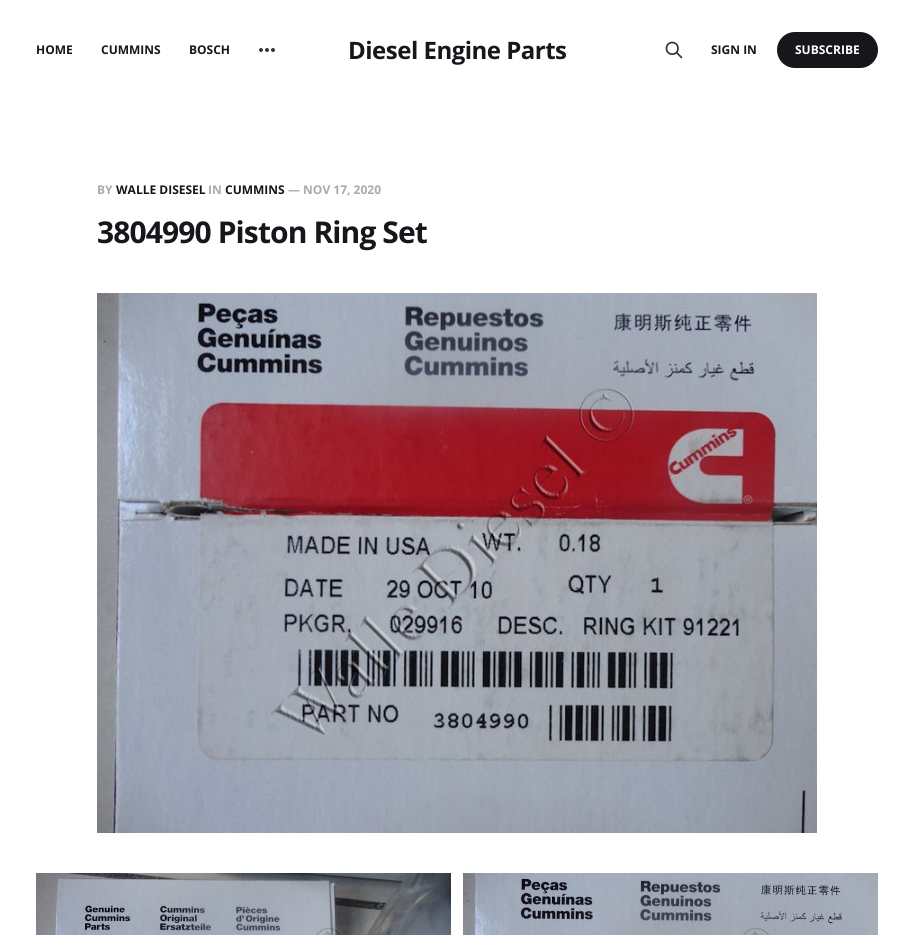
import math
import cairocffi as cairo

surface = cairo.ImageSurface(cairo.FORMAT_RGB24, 914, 935)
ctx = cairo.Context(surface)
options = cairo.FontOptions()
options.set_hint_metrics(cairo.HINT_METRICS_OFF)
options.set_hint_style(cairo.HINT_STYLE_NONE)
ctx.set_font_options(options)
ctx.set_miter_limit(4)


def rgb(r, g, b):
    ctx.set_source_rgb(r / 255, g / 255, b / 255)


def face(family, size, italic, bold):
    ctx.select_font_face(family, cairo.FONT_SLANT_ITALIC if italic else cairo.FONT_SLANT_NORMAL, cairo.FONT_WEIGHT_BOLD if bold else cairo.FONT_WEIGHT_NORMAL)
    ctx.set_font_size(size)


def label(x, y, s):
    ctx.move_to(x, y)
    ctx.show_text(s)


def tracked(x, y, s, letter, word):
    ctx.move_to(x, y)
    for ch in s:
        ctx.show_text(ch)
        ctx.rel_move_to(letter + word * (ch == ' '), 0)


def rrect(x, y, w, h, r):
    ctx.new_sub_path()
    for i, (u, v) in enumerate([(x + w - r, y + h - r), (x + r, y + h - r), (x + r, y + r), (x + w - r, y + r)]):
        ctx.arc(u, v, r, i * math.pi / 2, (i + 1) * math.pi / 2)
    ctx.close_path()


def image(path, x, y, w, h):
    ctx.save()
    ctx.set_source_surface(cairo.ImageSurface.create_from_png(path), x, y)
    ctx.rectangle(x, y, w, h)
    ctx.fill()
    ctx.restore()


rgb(255, 255, 255)
ctx.paint()
face('Open Sans', 12, 0, 1)
rgb(21, 23, 26)
label(36, 54, 'HOME')
label(101, 54, 'CUMMINS')
label(189, 54, 'BOSCH')
image('image0.png', 259, 48, 16, 4)
face('Open Sans', 24, 0, 1)
tracked(348, 59, 'Diesel Engine Parts', -0.5, 0)
ctx.new_path()
ctx.move_to(681.5, 57.5)
ctx.line_to(676.5, 52.5)
ctx.move_to(678, 48.5)
ctx.curve_to(678, 56, 666.5, 56, 666.5, 48.5)
ctx.curve_to(666.5, 40.5, 678, 40.5, 678, 48.5)
ctx.close_path()
rgb(51, 51, 51)
ctx.set_line_width(1.7)
ctx.set_line_cap(cairo.LINE_CAP_ROUND)
ctx.set_line_join(cairo.LINE_JOIN_ROUND)
ctx.stroke()
face('Open Sans', 12, 0, 1)
rgb(21, 23, 26)
label(711, 54, 'SIGN IN')
rrect(777, 32, 101, 36, 18)
ctx.fill()
rgb(255, 255, 255)
label(795, 54, 'SUBSCRIBE')
rgb(170, 170, 170)
label(97, 194, 'BY')
rgb(21, 23, 26)
label(116, 194, 'WALLE DISESEL')
rgb(170, 170, 170)
label(208, 194, 'IN')
rgb(21, 23, 26)
label(225, 194, 'CUMMINS')
rgb(170, 170, 170)
label(288, 194, '— NOV 17, 2020')
face('Open Sans', 30, 0, 1)
rgb(21, 23, 26)
tracked(97, 243, '3804990 Piston Ring Set', -0.9, 0)
image('image1.png', 97, 293, 720, 540)
image('image2.png', 36, 873, 415, 62)
image('image3.png', 463, 873, 415, 62)
surface.write_to_png('render.png')
